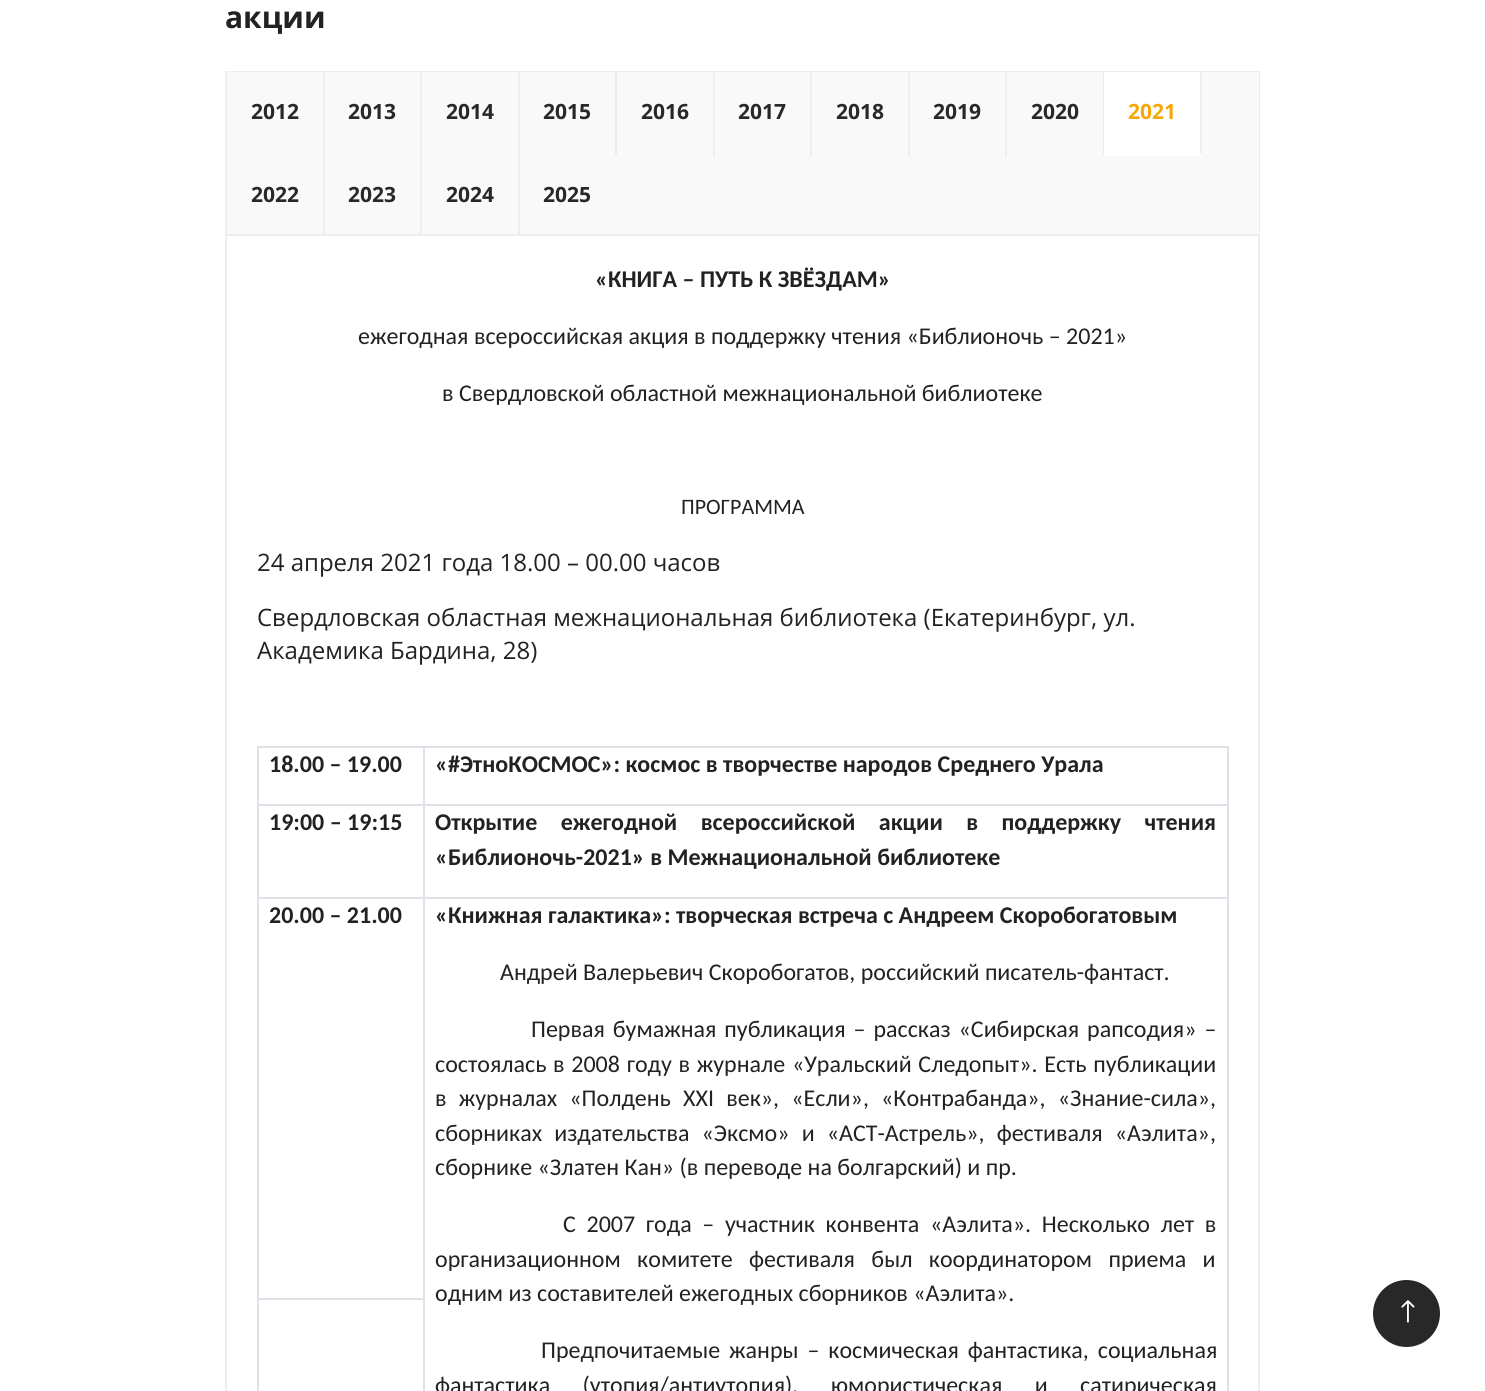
import math
import cairocffi as cairo

surface = cairo.ImageSurface(cairo.FORMAT_RGB24, 1485, 1391)
ctx = cairo.Context(surface)
options = cairo.FontOptions()
options.set_hint_metrics(cairo.HINT_METRICS_OFF)
options.set_hint_style(cairo.HINT_STYLE_NONE)
ctx.set_font_options(options)
ctx.set_miter_limit(4)


def rgb(r, g, b):
    ctx.set_source_rgb(r / 255, g / 255, b / 255)


def face(family, size, italic, bold):
    ctx.select_font_face(family, cairo.FONT_SLANT_ITALIC if italic else cairo.FONT_SLANT_NORMAL, cairo.FONT_WEIGHT_BOLD if bold else cairo.FONT_WEIGHT_NORMAL)
    ctx.set_font_size(size)


def label(x, y, s):
    ctx.move_to(x, y)
    ctx.show_text(s)


def tracked(x, y, s, letter, word):
    ctx.move_to(x, y)
    for ch in s:
        ctx.show_text(ch)
        ctx.rel_move_to(letter + word * (ch == ' '), 0)


def rect(x, y, w, h):
    ctx.rectangle(x, y, w, h)
    ctx.fill()


def image(path, x, y, w, h):
    ctx.save()
    ctx.set_source_surface(cairo.ImageSurface.create_from_png(path), x, y)
    ctx.rectangle(x, y, w, h)
    ctx.fill()
    ctx.restore()


rgb(255, 255, 255)
ctx.paint()
face('Open Sans', 30, 0, 1)
rgb(34, 34, 34)
label(225, 28, 'акции')
ctx.rectangle(226, 72, 1033, 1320)
rgb(238, 238, 238)
ctx.stroke()
rgb(249, 249, 249)
rect(227, 72, 1032, 162)
rgb(238, 238, 238)
rect(227, 234, 1032, 2)
rect(323, 72, 2, 164)
face('Open Sans', 21, 0, 1)
rgb(40, 40, 40)
label(251, 119, '2012')
rgb(238, 238, 238)
rect(420, 72, 2, 164)
rgb(40, 40, 40)
label(348, 119, '2013')
rgb(238, 238, 238)
rect(518, 72, 2, 164)
rgb(40, 40, 40)
label(446, 119, '2014')
rgb(238, 238, 238)
rect(615, 72, 2, 84)
rgb(40, 40, 40)
label(543, 119, '2015')
rgb(238, 238, 238)
rect(713, 72, 2, 84)
rgb(40, 40, 40)
label(641, 119, '2016')
rgb(238, 238, 238)
rect(810, 72, 2, 84)
rgb(40, 40, 40)
label(738, 119, '2017')
rgb(238, 238, 238)
rect(908, 72, 2, 84)
rgb(40, 40, 40)
label(836, 119, '2018')
rgb(238, 238, 238)
rect(1005, 72, 2, 84)
rgb(40, 40, 40)
label(933, 119, '2019')
rgb(238, 238, 238)
rect(1103, 72, 1, 84)
rgb(40, 40, 40)
label(1031, 119, '2020')
rgb(255, 255, 255)
rect(1104, 72, 98, 84)
rgb(238, 238, 238)
ctx.new_path()
ctx.move_to(1202, 72)
ctx.line_to(1202, 156)
ctx.line_to(1200, 153)
ctx.line_to(1200, 72)
ctx.close_path()
ctx.fill()
rgb(255, 255, 255)
ctx.new_path()
ctx.move_to(1202, 156)
ctx.line_to(1104, 156)
ctx.line_to(1104, 153)
ctx.line_to(1200, 153)
ctx.close_path()
ctx.fill()
rgb(247, 167, 7)
label(1128, 119, '2021')
rgb(40, 40, 40)
label(251, 202, '2022')
label(348, 202, '2023')
label(446, 202, '2024')
label(543, 202, '2025')
face('Carlito', 24, 0, 1)
rgb(34, 34, 34)
label(595, 287, '«КНИГА – ПУТЬ К ЗВЁЗДАМ»')
face('Carlito', 24, 0, 0)
label(358, 344, 'ежегодная всероссийская акция в поддержку чтения «Библионочь – 2021»')
label(442, 401, 'в Свердловской областной межнациональной библиотеке')
face('Carlito', 22, 0, 0)
label(681, 514, 'ПРОГРАММА')
face('Open Sans', 24, 0, 0)
label(257, 571, '24 апреля 2021 года 18.00 – 00.00 часов')
label(257, 626, 'Свердловская областная межнациональная библиотека (Екатеринбург, ул.')
label(257, 659, 'Академика Бардина, 28)')
rgb(222, 226, 230)
rect(423, 746, 806, 2)
rect(423, 804, 806, 2)
rect(423, 897, 806, 2)
rect(257, 1298, 168, 2)
rect(423, 897, 2, 494)
rect(257, 897, 168, 2)
rect(423, 804, 2, 95)
rect(257, 804, 168, 2)
rect(423, 746, 2, 60)
rect(257, 746, 168, 2)
rect(257, 1298, 2, 93)
rect(257, 897, 2, 402)
rect(257, 804, 2, 95)
rect(257, 746, 2, 60)
face('Carlito', 24, 0, 1)
rgb(34, 34, 34)
label(269, 772, '18.00 – 19.00')
rgb(222, 226, 230)
rect(1227, 897, 2, 494)
rect(1227, 804, 2, 95)
rect(1227, 746, 2, 60)
rgb(34, 34, 34)
label(435, 772, '«#ЭтноКОСМОС»: космос в творчестве народов Среднего Урала')
label(269, 830, '19:00 – 19:15')
tracked(435, 830, 'Открытие ежегодной всероссийской акции в поддержку чтения', 0, 18)
label(435, 865, '«Библионочь-2021» в Межнациональной библиотеке')
label(269, 923, '20.00 – 21.00')
label(435, 923, '«Книжная галактика»: творческая встреча с Андреем Скоробогатовым')
face('Carlito', 24, 0, 0)
label(500, 980, 'Андрей Валерьевич Скоробогатов, российский писатель-фантаст.')
tracked(531, 1037, 'Первая бумажная публикация – рассказ «Сибирская рапсодия» –', 0, 2.5)
tracked(435, 1072, 'состоялась в 2008 году в журнале «Уральский Следопыт». Есть публикации', 0, 1.25)
tracked(435, 1106, 'в журналах «Полдень XXI век», «Если», «Контрабанда», «Знание-сила»,', 0, 6.75)
tracked(435, 1141, 'сборниках издательства «Эксмо» и «АСТ-Астрель», фестиваля «Аэлита»,', 0, 6.75)
label(435, 1175, 'сборнике «Златен Кан» (в переводе на болгарский) и пр.')
tracked(563, 1232, 'С 2007 года – участник конвента «Аэлита». Несколько лет в', 0, 5.25)
tracked(435, 1267, 'организационном комитете фестиваля был координатором приема и', 0, 11)
label(435, 1301, 'одним из составителей ежегодных сборников «Аэлита».')
tracked(541, 1358, 'Предпочитаемые жанры – космическая фантастика, социальная', 0, 3.5)
tracked(435, 1393, 'фантастика (утопия/антиутопия), юмористическая и сатирическая', 0, 27)
rgb(40, 40, 40)
ctx.new_path()
ctx.arc(1406.5, 1313.5, 33.5, 0, 2 * math.pi)
ctx.fill()
image('image0.png', 1401, 1300, 14, 23)
surface.write_to_png('render.png')
